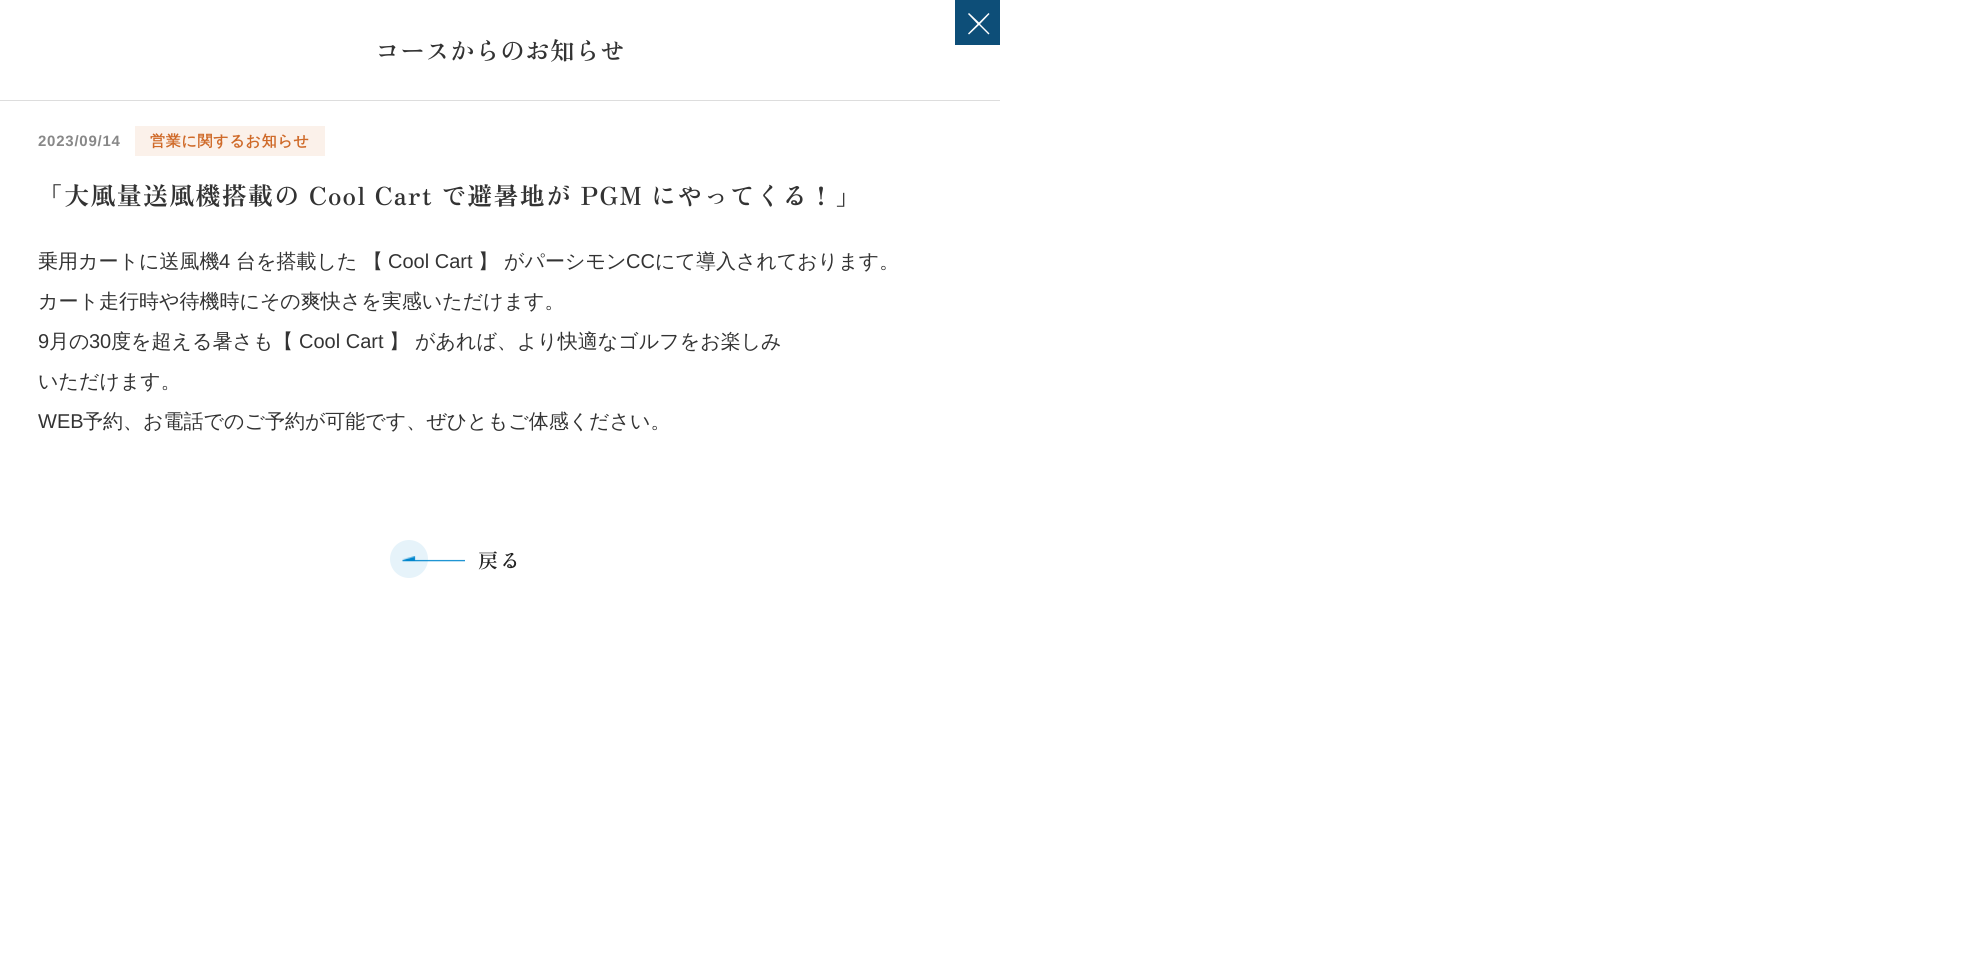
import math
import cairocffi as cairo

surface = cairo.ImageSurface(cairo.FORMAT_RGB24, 1987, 953)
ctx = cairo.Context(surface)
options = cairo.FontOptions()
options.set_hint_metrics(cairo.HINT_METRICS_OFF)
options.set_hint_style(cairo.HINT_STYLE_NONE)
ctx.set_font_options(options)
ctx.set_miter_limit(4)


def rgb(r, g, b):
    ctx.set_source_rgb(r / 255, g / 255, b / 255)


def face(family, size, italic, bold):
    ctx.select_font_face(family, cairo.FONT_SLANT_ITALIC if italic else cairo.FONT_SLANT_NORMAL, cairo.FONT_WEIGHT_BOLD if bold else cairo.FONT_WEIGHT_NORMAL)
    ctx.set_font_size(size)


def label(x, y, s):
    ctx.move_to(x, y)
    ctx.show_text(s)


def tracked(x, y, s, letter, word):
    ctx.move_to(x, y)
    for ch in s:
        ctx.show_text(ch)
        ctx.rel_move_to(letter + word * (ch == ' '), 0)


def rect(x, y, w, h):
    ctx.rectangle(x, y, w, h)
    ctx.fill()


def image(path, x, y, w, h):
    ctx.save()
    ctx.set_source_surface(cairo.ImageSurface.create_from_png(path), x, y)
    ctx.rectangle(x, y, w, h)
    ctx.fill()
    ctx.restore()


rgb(255, 255, 255)
ctx.paint()
rgb(221, 221, 221)
rect(0, 100, 1000, 1)
rgb(13, 78, 120)
rect(955, 0, 45, 45)
rgb(255, 255, 255)
ctx.set_fill_rule(cairo.FILL_RULE_EVEN_ODD)
ctx.new_path()
ctx.move_to(968, 14)
ctx.line_to(969, 13)
ctx.line_to(979, 22.5)
ctx.line_to(988.5, 13)
ctx.line_to(989.5, 14)
ctx.line_to(980, 24)
ctx.line_to(989.5, 33.5)
ctx.line_to(988.5, 34.5)
ctx.line_to(979, 25)
ctx.line_to(969, 34.5)
ctx.line_to(968, 33.5)
ctx.line_to(977.5, 24)
ctx.close_path()
ctx.fill()
face('Zen Old Mincho SemiBold', 25, 0, 0)
rgb(51, 51, 51)
label(375, 60, 'コースからのお知らせ')
face('Liberation Sans', 15, 0, 1)
rgb(136, 136, 136)
tracked(38, 146, '2023/09/14', 0.75, 0)
rgb(251, 241, 234)
rect(135, 126, 190, 30)
face('WenQuanYi Zen Hei', 15, 0, 1)
rgb(207, 106, 41)
tracked(150, 146, '営業に関するお知らせ', 0.75, 0)
face('Zen Old Mincho', 25, 0, 1)
rgb(51, 51, 51)
tracked(38, 205, '「大風量送風機搭載の Cool Cart で避暑地が PGM にやってくる！」', 1.25, 0)
face('WenQuanYi Zen Hei Medium', 20, 0, 0)
label(38, 268, '乗用カートに送風機')
face('Liberation Sans', 20, 0, 0)
label(219, 268, '4')
face('WenQuanYi Zen Hei Medium', 20, 0, 0)
label(236, 268, '台を搭載した')
label(363, 268, '【')
face('Liberation Sans', 20, 0, 0)
label(388, 268, 'Cool Cart')
face('WenQuanYi Zen Hei Medium', 20, 0, 0)
label(478, 268, '】')
label(504, 268, 'がパーシモン')
face('Liberation Sans', 20, 0, 0)
label(626, 268, 'CC')
face('WenQuanYi Zen Hei Medium', 20, 0, 0)
label(655, 268, 'にて導入されております。')
label(38, 308, 'カート走行時や待機時にその爽快さを実感いただけます。')
face('Liberation Sans', 20, 0, 0)
label(38, 348, '9')
face('WenQuanYi Zen Hei Medium', 20, 0, 0)
label(49, 348, '月の')
face('Liberation Sans', 20, 0, 0)
label(89, 348, '30')
face('WenQuanYi Zen Hei Medium', 20, 0, 0)
label(111, 348, '度を超える暑さも【')
face('Liberation Sans', 20, 0, 0)
label(299, 348, 'Cool Cart')
face('WenQuanYi Zen Hei Medium', 20, 0, 0)
label(389, 348, '】')
label(415, 348, 'があれば、より快適なゴルフをお楽しみ')
label(38, 388, 'いただけます。')
face('Liberation Sans', 20, 0, 0)
label(38, 428, 'WEB')
face('WenQuanYi Zen Hei Medium', 20, 0, 0)
label(83, 428, '予約、お電話でのご予約が可能です、ぜひともご体感ください。')
rgb(230, 243, 250)
ctx.new_path()
ctx.arc(409, 559, 19, 0, 2 * math.pi)
ctx.fill()
face('Zen Old Mincho SemiBold', 20, 0, 0)
rgb(34, 34, 34)
tracked(478, 568, '戻る', 2, 0)
image('image0.png', 402, 556, 63, 6)
surface.write_to_png('render.png')
